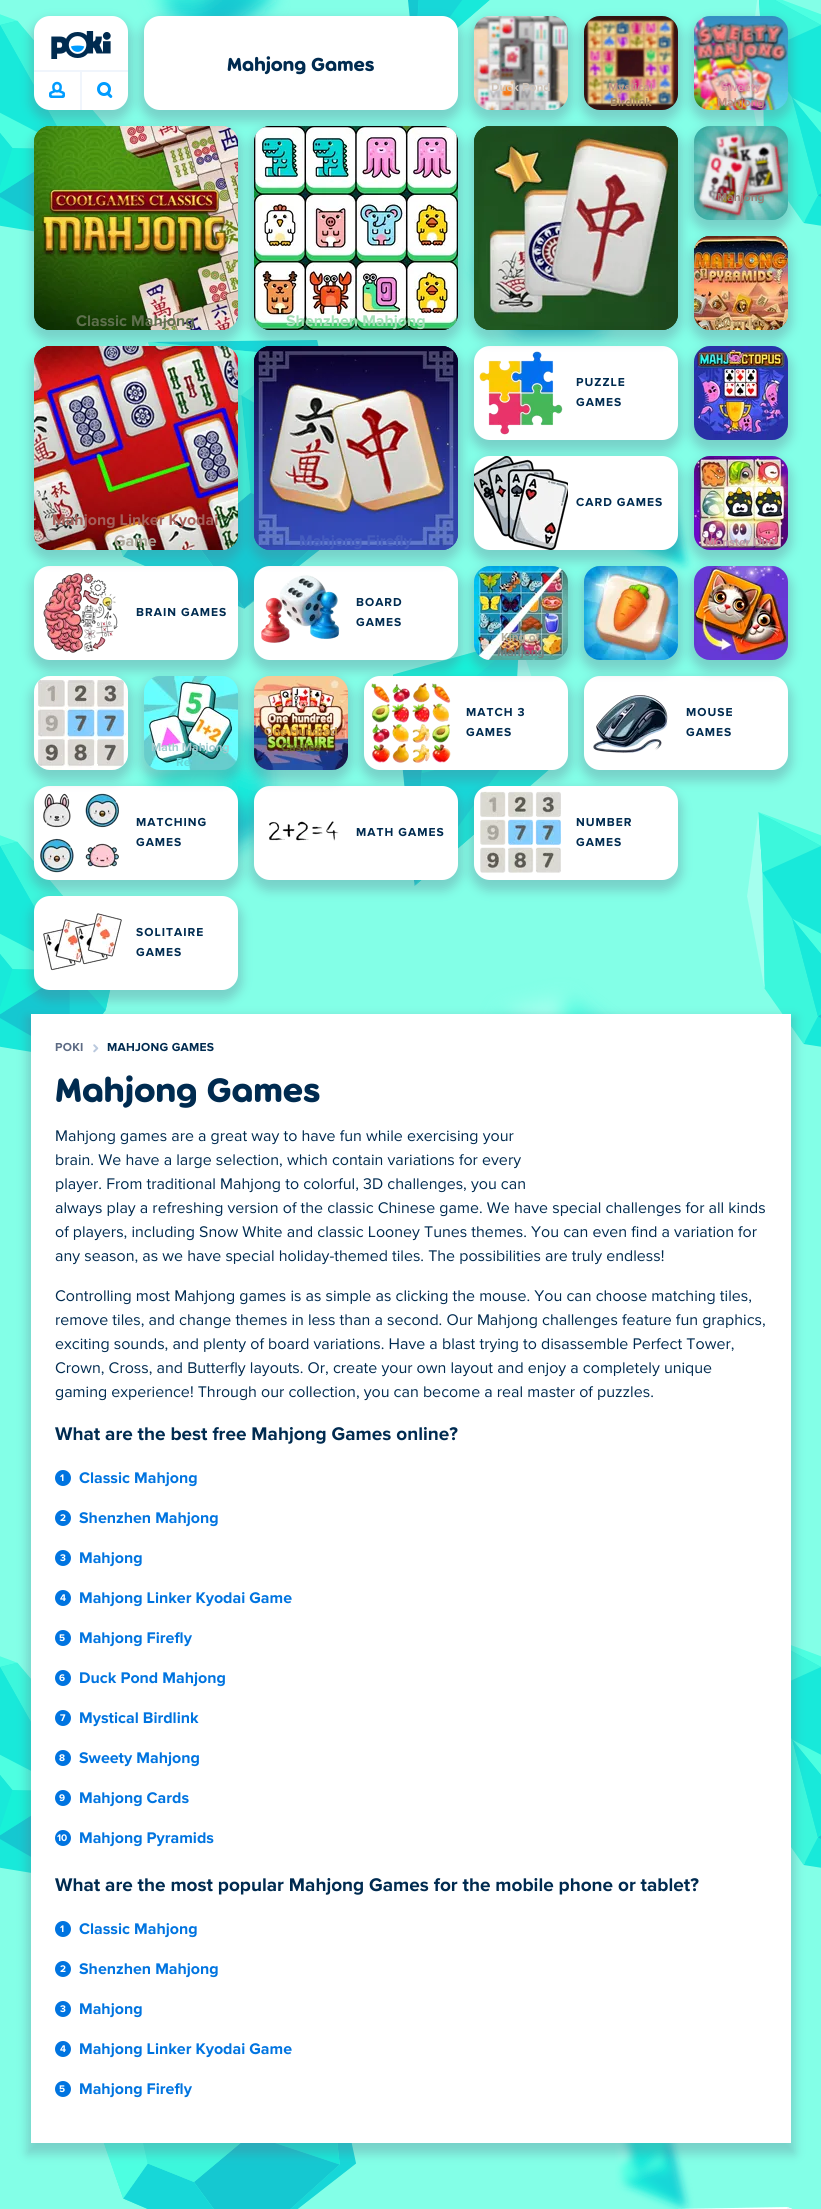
import math
import cairocffi as cairo

surface = cairo.ImageSurface(cairo.FORMAT_RGB24, 821, 2209)
ctx = cairo.Context(surface)
options = cairo.FontOptions()
options.set_hint_metrics(cairo.HINT_METRICS_OFF)
options.set_hint_style(cairo.HINT_STYLE_NONE)
ctx.set_font_options(options)
ctx.set_miter_limit(4)


def rgb(r, g, b):
    ctx.set_source_rgb(r / 255, g / 255, b / 255)


def face(family, size, italic, bold):
    ctx.select_font_face(family, cairo.FONT_SLANT_ITALIC if italic else cairo.FONT_SLANT_NORMAL, cairo.FONT_WEIGHT_BOLD if bold else cairo.FONT_WEIGHT_NORMAL)
    ctx.set_font_size(size)


def label(x, y, s):
    ctx.move_to(x, y)
    ctx.show_text(s)


def tracked(x, y, s, letter, word):
    ctx.move_to(x, y)
    for ch in s:
        ctx.show_text(ch)
        ctx.rel_move_to(letter + word * (ch == ' '), 0)


def rect(x, y, w, h):
    ctx.rectangle(x, y, w, h)
    ctx.fill()


def rrect(x, y, w, h, r):
    ctx.new_sub_path()
    for i, (u, v) in enumerate([(x + w - r, y + h - r), (x + r, y + h - r), (x + r, y + r), (x + w - r, y + r)]):
        ctx.arc(u, v, r, i * math.pi / 2, (i + 1) * math.pi / 2)
    ctx.close_path()


def soft_shadow(x, y, w, h, r, blur, alpha):
    ctx.push_group_with_content(cairo.CONTENT_ALPHA)
    ctx.set_operator(cairo.OPERATOR_SOURCE)
    for i in range(15, -16, -2):
        e = blur * i / 6
        if min(w, h) + 2 * e > 0:
            ctx.set_source_rgba(0, 0, 0, alpha * math.erfc((i - 1) / 8.5) / 2)
            rrect(x - e, y - e, w + 2 * e, h + 2 * e, max(0, min(r + e + blur * .6, min(w, h) / 2 + e)))
            ctx.fill()
    ctx.mask(ctx.pop_group())


def image(path, x, y, w, h):
    ctx.save()
    ctx.set_source_surface(cairo.ImageSurface.create_from_png(path), x, y)
    ctx.rectangle(x, y, w, h)
    ctx.fill()
    ctx.restore()


rgb(131, 255, 231)
ctx.paint()
image('image0.png', 0, 0, 821, 2209)
rgb(93, 107, 132)
soft_shadow(140, 19, 322, 102, 20, 5, 0.3)
rgb(255, 255, 255)
rrect(144, 16, 314, 94, 16)
ctx.fill()
rgb(93, 107, 132)
soft_shadow(30, 129, 212, 212, 20, 5, 0.3)
image('image10.png', 34, 126, 204, 204)
image('image11.png', 34, 126, 204, 204)
soft_shadow(30, 19, 102, 102, 20, 5, 0.3)
rgb(255, 255, 255)
rrect(34, 16, 94, 94, 16)
ctx.fill()
image('image1.png', 51, 31, 60, 28)
rgb(240, 245, 252)
rect(34, 70, 94, 2)
image('image2.png', 49, 81, 16, 17)
rect(80, 72, 2, 38)
image('image3.png', 97, 82, 16, 16)
face('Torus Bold', 20, 0, 1)
rgb(0, 43, 80)
label(227, 71, 'Mahjong Games')
rgb(93, 107, 132)
soft_shadow(470, 349, 212, 102, 20, 5, 0.3)
rgb(255, 255, 255)
rrect(474, 346, 204, 94, 16)
ctx.fill()
rgb(93, 107, 132)
soft_shadow(250, 129, 212, 212, 20, 5, 0.3)
image('image12.png', 254, 126, 204, 204)
image('image13.png', 254, 126, 204, 204)
image('image20.png', 479, 351, 84, 84)
soft_shadow(470, 129, 212, 212, 20, 5, 0.3)
image('image7.png', 474, 126, 204, 204)
image('image8.png', 474, 126, 204, 204)
soft_shadow(470, 19, 102, 102, 20, 5, 0.3)
image('image4.png', 474, 16, 94, 94)
face('Proxima Nova', 12, 0, 1)
rgb(207, 196, 185)
label(491, 91, 'Duck Pond')
rgb(93, 107, 132)
soft_shadow(580, 19, 102, 102, 20, 5, 0.3)
image('image5.png', 584, 16, 94, 94)
rgb(192, 147, 133)
label(608, 91, 'Mystical')
rgb(165, 134, 100)
label(610, 106, 'Birdlink')
rgb(93, 107, 132)
soft_shadow(690, 19, 102, 102, 20, 5, 0.3)
image('image6.png', 694, 16, 94, 94)
rgb(218, 151, 166)
label(721, 91, 'Sweety')
rgb(194, 140, 130)
label(717, 106, 'Mahjong')
rgb(93, 107, 132)
soft_shadow(690, 129, 102, 102, 20, 5, 0.3)
image('image9.png', 694, 126, 94, 94)
rgb(150, 129, 120)
label(717, 201, 'Mahjong')
face('Proxima Nova', 16, 0, 1)
rgb(95, 112, 78)
label(76, 326, 'Classic Mahjong')
rgb(162, 221, 182)
label(286, 326, 'Shenzhen Mahjong')
rgb(93, 107, 132)
soft_shadow(690, 239, 102, 102, 20, 5, 0.3)
image('image14.png', 694, 236, 94, 94)
image('image15.png', 694, 236, 94, 94)
face('Proxima Nova', 12, 0, 1)
rgb(180, 144, 97)
label(715, 326, 'Pyramids')
rgb(93, 107, 132)
soft_shadow(30, 569, 212, 102, 20, 5, 0.3)
rgb(255, 255, 255)
rrect(34, 566, 204, 94, 16)
ctx.fill()
image('image22.png', 43, 573, 75, 80)
rgb(93, 107, 132)
soft_shadow(470, 459, 212, 102, 20, 5, 0.3)
soft_shadow(250, 569, 212, 102, 20, 5, 0.3)
rgb(255, 255, 255)
rrect(254, 566, 204, 94, 16)
ctx.fill()
rgb(93, 107, 132)
soft_shadow(30, 349, 212, 212, 20, 5, 0.3)
image('image16.png', 34, 346, 204, 204)
image('image17.png', 34, 346, 204, 204)
face('Proxima Nova', 16, 0, 1)
rgb(166, 96, 90)
label(52, 525, 'Mahjong Linker Kyodai')
rgb(171, 164, 153)
label(114, 546, 'Game')
rgb(255, 255, 255)
rrect(474, 456, 204, 94, 16)
ctx.fill()
image('image21.png', 474, 456, 94, 94)
image('image23.png', 261, 575, 79, 68)
rgb(93, 107, 132)
soft_shadow(250, 349, 212, 212, 20, 5, 0.3)
image('image18.png', 254, 346, 204, 204)
image('image19.png', 254, 346, 204, 204)
rgb(69, 93, 191)
label(299, 546, 'Mahjong Firefly')
face('Proxima Nova', 12, 0, 1)
rgb(0, 43, 80)
tracked(576, 386, 'PUZZLE', 1, 0)
tracked(576, 406, 'GAMES', 1, 0)
tracked(576, 506, 'CARD GAMES', 1, 0)
tracked(136, 616, 'BRAIN GAMES', 1, 0)
tracked(356, 606, 'BOARD', 1, 0)
tracked(356, 626, 'GAMES', 1, 0)
rgb(93, 107, 132)
soft_shadow(690, 349, 102, 102, 20, 5, 0.3)
image('image24.png', 694, 346, 94, 94)
soft_shadow(690, 459, 102, 102, 20, 5, 0.3)
image('image25.png', 694, 456, 94, 94)
rgb(191, 148, 160)
label(705, 546, 'Monster Duo')
rgb(93, 107, 132)
soft_shadow(360, 679, 212, 102, 20, 5, 0.3)
rgb(255, 255, 255)
rrect(364, 676, 204, 94, 16)
ctx.fill()
rgb(93, 107, 132)
soft_shadow(580, 679, 212, 102, 20, 5, 0.3)
rgb(255, 255, 255)
rrect(584, 676, 204, 94, 16)
ctx.fill()
rgb(93, 107, 132)
soft_shadow(470, 569, 102, 102, 20, 5, 0.3)
image('image26.png', 474, 566, 94, 94)
rgb(178, 174, 158)
label(501, 641, 'King of')
rgb(116, 130, 128)
label(497, 656, 'Mahjong')
rgb(93, 107, 132)
soft_shadow(580, 569, 102, 102, 20, 5, 0.3)
image('image27.png', 584, 566, 94, 94)
soft_shadow(690, 569, 102, 102, 20, 5, 0.3)
image('image28.png', 694, 566, 94, 94)
soft_shadow(30, 789, 212, 102, 20, 5, 0.3)
rgb(255, 255, 255)
rrect(34, 786, 204, 94, 16)
ctx.fill()
image('image32.png', 40, 793, 79, 80)
rgb(93, 107, 132)
soft_shadow(30, 679, 102, 102, 20, 5, 0.3)
image('image29.png', 34, 676, 94, 94)
image('image30.png', 371, 683, 80, 80)
rgb(0, 43, 80)
tracked(466, 716, 'MATCH 3', 1, 0)
tracked(466, 736, 'GAMES', 1, 0)
image('image31.png', 593, 695, 75, 58)
tracked(686, 716, 'MOUSE', 1, 0)
tracked(686, 736, 'GAMES', 1, 0)
tracked(136, 826, 'MATCHING', 1, 0)
tracked(136, 846, 'GAMES', 1, 0)
rgb(93, 107, 132)
soft_shadow(250, 789, 212, 102, 20, 5, 0.3)
rgb(255, 255, 255)
rrect(254, 786, 204, 94, 16)
ctx.fill()
image('image33.png', 269, 821, 70, 20)
rgb(0, 43, 80)
tracked(356, 836, 'MATH GAMES', 1, 0)
rgb(93, 107, 132)
soft_shadow(470, 789, 212, 102, 20, 5, 0.3)
rgb(255, 255, 255)
rrect(474, 786, 204, 94, 16)
ctx.fill()
image('image34.png', 480, 791, 81, 82)
rgb(0, 43, 80)
tracked(576, 826, 'NUMBER', 1, 0)
tracked(576, 846, 'GAMES', 1, 0)
rgb(93, 107, 132)
soft_shadow(30, 899, 212, 102, 20, 5, 0.3)
rgb(255, 255, 255)
rrect(34, 896, 204, 94, 16)
ctx.fill()
image('image35.png', 43, 913, 79, 58)
rgb(0, 43, 80)
tracked(136, 936, 'SOLITAIRE', 1, 0)
tracked(136, 956, 'GAMES', 1, 0)
rgb(93, 107, 132)
soft_shadow(140, 679, 102, 102, 20, 5, 0.3)
image('image37.png', 144, 676, 94, 94)
soft_shadow(250, 679, 102, 102, 20, 5, 0.3)
image('image36.png', 254, 676, 94, 94)
rgb(190, 143, 69)
label(264, 735, 'One Hundred')
rgb(101, 100, 44)
label(281, 751, 'Castles')
rgb(160, 203, 207)
label(151, 751, 'Math Mahjong')
rgb(98, 216, 216)
label(176, 766, 'Re')
rgb(93, 107, 132)
soft_shadow(27, 1017, 768, 1137, 0, 5, 0.3)
rgb(255, 255, 255)
rect(31, 1014, 760, 1129)
rgb(93, 107, 132)
tracked(55, 1051, 'POKI', 0.25, 0)
image('image38.png', 93, 1044, 6, 9)
rgb(0, 43, 80)
tracked(107, 1051, 'MAHJONG GAMES', 0.25, 0)
face('Torus Bold', 36, 0, 1)
label(55, 1102, 'Mahjong Games')
face('Proxima Nova', 16, 0, 0)
label(55, 1141, 'Mahjong games are a great way to have fun while exercising your')
label(55, 1165, 'brain. We have a large selection, which contain variations for every')
label(55, 1189, 'player. From traditional Mahjong to colorful, 3D challenges, you can')
label(55, 1213, 'always play a refreshing version of the classic Chinese game. We have special challenges for all kinds')
label(55, 1237, 'of players, including Snow White and classic Looney Tunes themes. You can even find a variation for')
label(55, 1261, 'any season, as we have special holiday-themed tiles. The possibilities are truly endless!')
label(55, 1301, 'Controlling most Mahjong games is as simple as clicking the mouse. You can choose matching tiles,')
label(55, 1325, 'remove tiles, and change themes in less than a second. Our Mahjong challenges feature fun graphics,')
label(55, 1349, 'exciting sounds, and plenty of board variations. Have a blast trying to disassemble Perfect Tower,')
label(55, 1373, 'Crown, Cross, and Butterfly layouts. Or, create your own layout and enjoy a completely unique')
label(55, 1397, 'gaming experience! Through our collection, you can become a real master of puzzles.')
face('Proxima Nova', 19, 0, 1)
label(55, 1440, 'What are the best free Mahjong Games online?')
rgb(0, 116, 224)
ctx.new_path()
ctx.arc(63, 1478, 8, 0, 2 * math.pi)
ctx.fill()
face('Proxima Nova', 10, 0, 1)
rgb(255, 255, 255)
label(60, 1481, '1')
face('Proxima Nova', 16, 0, 1)
rgb(0, 116, 224)
label(79, 1483, 'Classic Mahjong')
ctx.new_path()
ctx.arc(63, 1518, 8, 0, 2 * math.pi)
ctx.fill()
face('Proxima Nova', 10, 0, 1)
rgb(255, 255, 255)
label(60, 1521, '2')
face('Proxima Nova', 16, 0, 1)
rgb(0, 116, 224)
label(79, 1523, 'Shenzhen Mahjong')
ctx.new_path()
ctx.arc(63, 1558, 8, 0, 2 * math.pi)
ctx.fill()
face('Proxima Nova', 10, 0, 1)
rgb(255, 255, 255)
label(60, 1561, '3')
face('Proxima Nova', 16, 0, 1)
rgb(0, 116, 224)
label(79, 1563, 'Mahjong')
ctx.new_path()
ctx.arc(63, 1598, 8, 0, 2 * math.pi)
ctx.fill()
face('Proxima Nova', 10, 0, 1)
rgb(255, 255, 255)
label(60, 1601, '4')
face('Proxima Nova', 16, 0, 1)
rgb(0, 116, 224)
label(79, 1603, 'Mahjong Linker Kyodai Game')
ctx.new_path()
ctx.arc(63, 1638, 8, 0, 2 * math.pi)
ctx.fill()
face('Proxima Nova', 10, 0, 1)
rgb(255, 255, 255)
label(59, 1641, '5')
face('Proxima Nova', 16, 0, 1)
rgb(0, 116, 224)
label(79, 1643, 'Mahjong Firefly')
ctx.new_path()
ctx.arc(63, 1678, 8, 0, 2 * math.pi)
ctx.fill()
face('Proxima Nova', 10, 0, 1)
rgb(255, 255, 255)
label(59, 1681, '6')
face('Proxima Nova', 16, 0, 1)
rgb(0, 116, 224)
label(79, 1683, 'Duck Pond Mahjong')
ctx.new_path()
ctx.arc(63, 1718, 8, 0, 2 * math.pi)
ctx.fill()
face('Proxima Nova', 10, 0, 1)
rgb(255, 255, 255)
label(60, 1721, '7')
face('Proxima Nova', 16, 0, 1)
rgb(0, 116, 224)
label(79, 1723, 'Mystical Birdlink')
ctx.new_path()
ctx.arc(63, 1758, 8, 0, 2 * math.pi)
ctx.fill()
face('Proxima Nova', 10, 0, 1)
rgb(255, 255, 255)
label(59, 1761, '8')
face('Proxima Nova', 16, 0, 1)
rgb(0, 116, 224)
label(79, 1763, 'Sweety Mahjong')
ctx.new_path()
ctx.arc(63, 1798, 8, 0, 2 * math.pi)
ctx.fill()
face('Proxima Nova', 10, 0, 1)
rgb(255, 255, 255)
label(59, 1801, '9')
face('Proxima Nova', 16, 0, 1)
rgb(0, 116, 224)
label(79, 1803, 'Mahjong Cards')
ctx.new_path()
ctx.arc(63, 1838, 8, 0, 2 * math.pi)
ctx.fill()
face('Proxima Nova', 10, 0, 1)
rgb(255, 255, 255)
label(57, 1841, '10')
face('Proxima Nova', 16, 0, 1)
rgb(0, 116, 224)
label(79, 1843, 'Mahjong Pyramids')
face('Proxima Nova', 19, 0, 1)
rgb(0, 43, 80)
label(55, 1891, 'What are the most popular Mahjong Games for the mobile phone or tablet?')
rgb(0, 116, 224)
ctx.new_path()
ctx.arc(63, 1929, 8, 0, 2 * math.pi)
ctx.fill()
face('Proxima Nova', 10, 0, 1)
rgb(255, 255, 255)
label(60, 1932, '1')
face('Proxima Nova', 16, 0, 1)
rgb(0, 116, 224)
label(79, 1934, 'Classic Mahjong')
ctx.new_path()
ctx.arc(63, 1969, 8, 0, 2 * math.pi)
ctx.fill()
face('Proxima Nova', 10, 0, 1)
rgb(255, 255, 255)
label(60, 1972, '2')
face('Proxima Nova', 16, 0, 1)
rgb(0, 116, 224)
label(79, 1974, 'Shenzhen Mahjong')
ctx.new_path()
ctx.arc(63, 2009, 8, 0, 2 * math.pi)
ctx.fill()
face('Proxima Nova', 10, 0, 1)
rgb(255, 255, 255)
label(60, 2012, '3')
face('Proxima Nova', 16, 0, 1)
rgb(0, 116, 224)
label(79, 2014, 'Mahjong')
ctx.new_path()
ctx.arc(63, 2049, 8, 0, 2 * math.pi)
ctx.fill()
face('Proxima Nova', 10, 0, 1)
rgb(255, 255, 255)
label(60, 2052, '4')
face('Proxima Nova', 16, 0, 1)
rgb(0, 116, 224)
label(79, 2054, 'Mahjong Linker Kyodai Game')
ctx.new_path()
ctx.arc(63, 2089, 8, 0, 2 * math.pi)
ctx.fill()
face('Proxima Nova', 10, 0, 1)
rgb(255, 255, 255)
label(59, 2092, '5')
face('Proxima Nova', 16, 0, 1)
rgb(0, 116, 224)
label(79, 2094, 'Mahjong Firefly')
rgb(255, 255, 255)
ctx.new_path()
ctx.move_to(821, 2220)
ctx.line_to(787, 2207)
ctx.line_to(0, 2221)
ctx.line_to(0, 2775)
ctx.line_to(821, 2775)
ctx.close_path()
ctx.fill()
rgb(240, 245, 252)
ctx.new_path()
ctx.move_to(821, 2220)
ctx.line_to(787, 2207)
ctx.line_to(740, 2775)
ctx.line_to(821, 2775)
ctx.close_path()
ctx.fill()
surface.write_to_png('render.png')
